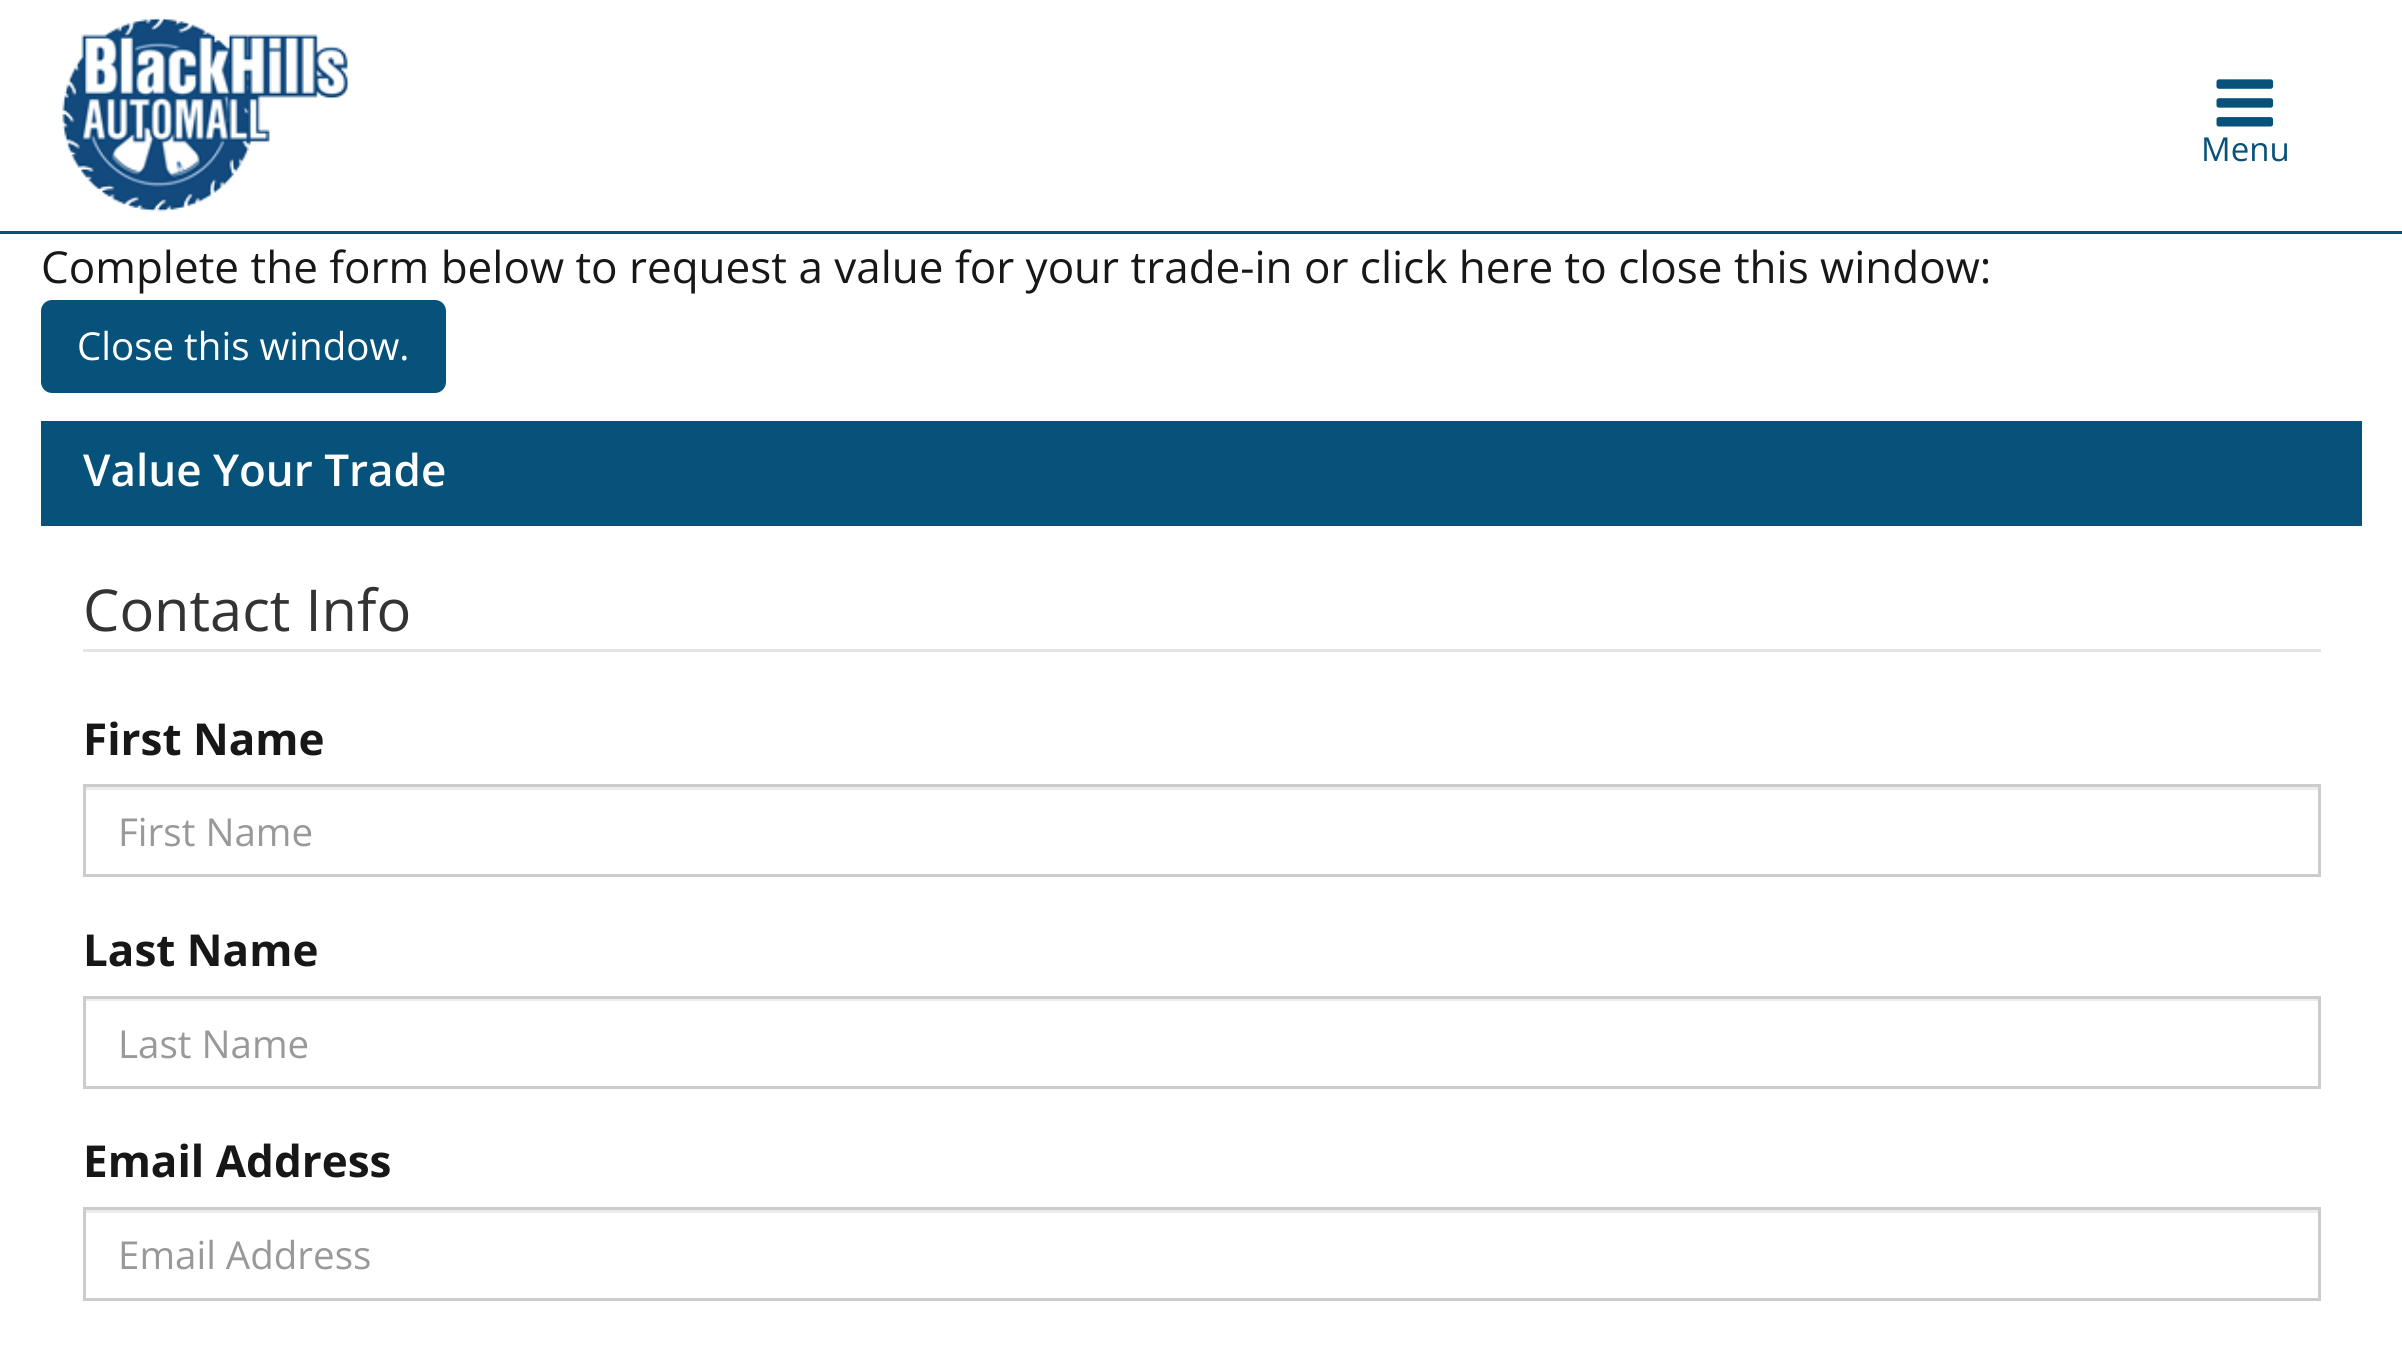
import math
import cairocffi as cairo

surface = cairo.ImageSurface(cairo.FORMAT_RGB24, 2402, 1359)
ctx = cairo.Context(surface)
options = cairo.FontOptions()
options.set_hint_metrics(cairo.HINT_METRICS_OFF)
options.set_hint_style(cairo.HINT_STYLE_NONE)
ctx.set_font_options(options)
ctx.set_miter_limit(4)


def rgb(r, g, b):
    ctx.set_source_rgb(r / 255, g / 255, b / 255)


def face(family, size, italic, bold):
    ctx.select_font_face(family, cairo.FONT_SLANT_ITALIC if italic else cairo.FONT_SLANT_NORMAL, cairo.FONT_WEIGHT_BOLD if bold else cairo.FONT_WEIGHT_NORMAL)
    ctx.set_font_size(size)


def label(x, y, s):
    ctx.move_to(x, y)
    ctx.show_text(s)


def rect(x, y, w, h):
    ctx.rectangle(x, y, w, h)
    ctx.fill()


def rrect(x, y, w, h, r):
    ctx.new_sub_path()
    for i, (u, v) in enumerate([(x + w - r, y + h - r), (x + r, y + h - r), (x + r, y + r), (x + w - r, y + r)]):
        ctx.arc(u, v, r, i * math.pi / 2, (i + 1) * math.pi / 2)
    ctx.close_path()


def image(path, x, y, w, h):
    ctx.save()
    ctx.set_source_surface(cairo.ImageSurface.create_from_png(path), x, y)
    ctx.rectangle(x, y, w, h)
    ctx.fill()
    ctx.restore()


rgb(255, 255, 255)
ctx.paint()
rgb(7, 82, 123)
rect(0, 231, 2402, 3)
image('image0.png', 62, 17, 288, 195)
image('image1.png', 2216, 79, 58, 48)
face('Open Sans', 33, 0, 0)
label(2201, 161, 'Menu')
face('Open Sans', 44, 0, 0)
rgb(23, 23, 23)
label(41, 283, 'Complete the form below to request a value for your trade-in or click here to close this window:')
rgb(7, 82, 123)
rrect(42.5, 301.5, 402, 90, 9.5)
ctx.fill_preserve()
ctx.set_line_width(3)
ctx.stroke()
face('Open Sans', 38.5, 0, 0)
rgb(255, 255, 255)
label(77, 360, 'Close this window.')
rgb(7, 82, 123)
rect(41, 421, 2321, 105)
face('Open Sans SemiBold', 44, 0, 0)
rgb(255, 255, 255)
label(83, 486, 'Value Your Trade')
rgb(229, 229, 229)
rect(83, 649, 2238, 3)
face('Open Sans', 57.75, 0, 0)
rgb(51, 51, 51)
label(83, 631, 'Contact Info')
face('Open Sans', 44, 0, 1)
rgb(23, 23, 23)
label(83, 755, 'First Name')
rgb(236, 236, 236)
rect(85, 787, 2233, 3)
ctx.rectangle(84.5, 785.5, 2235, 90)
rgb(204, 204, 204)
ctx.stroke()
face('Open Sans', 38.5, 0, 0)
rgb(153, 153, 153)
label(118, 846, 'First Name')
face('Open Sans', 44, 0, 1)
rgb(23, 23, 23)
label(83, 966, 'Last Name')
rgb(236, 236, 236)
rect(85, 999, 2233, 2)
ctx.rectangle(84.5, 997.5, 2235, 90)
rgb(204, 204, 204)
ctx.stroke()
face('Open Sans', 38.5, 0, 0)
rgb(153, 153, 153)
label(118, 1058, 'Last Name')
face('Open Sans', 44, 0, 1)
rgb(23, 23, 23)
label(83, 1177, 'Email Address')
rgb(236, 236, 236)
rect(85, 1210, 2233, 3)
ctx.rectangle(84.5, 1208.5, 2235, 91)
rgb(204, 204, 204)
ctx.stroke()
face('Open Sans', 38.5, 0, 0)
rgb(153, 153, 153)
label(118, 1269, 'Email Address')
surface.write_to_png('render.png')
